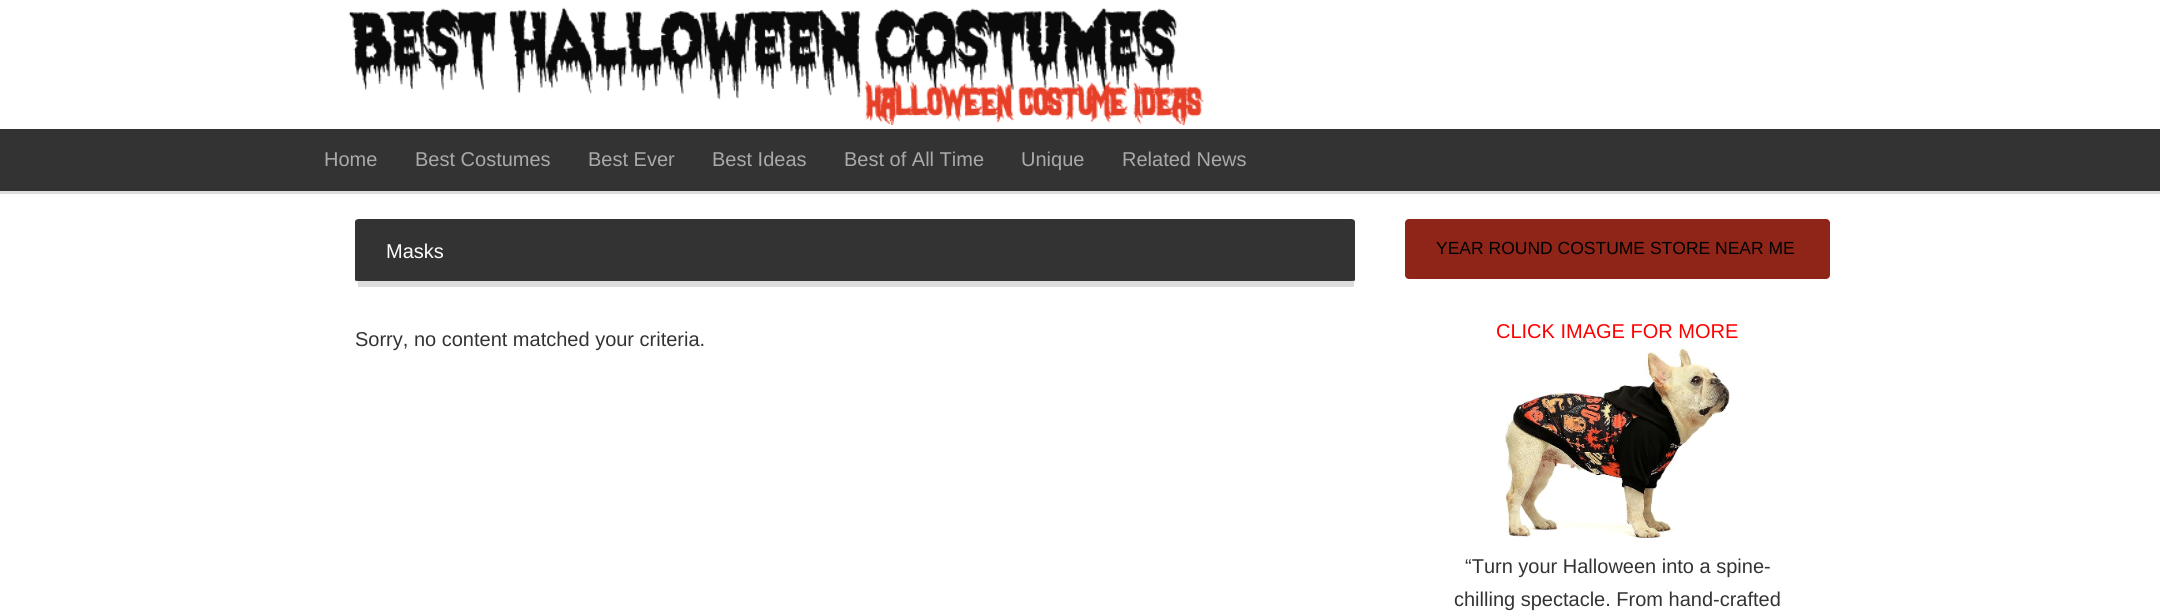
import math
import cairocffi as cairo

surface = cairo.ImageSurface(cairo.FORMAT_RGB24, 2160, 611)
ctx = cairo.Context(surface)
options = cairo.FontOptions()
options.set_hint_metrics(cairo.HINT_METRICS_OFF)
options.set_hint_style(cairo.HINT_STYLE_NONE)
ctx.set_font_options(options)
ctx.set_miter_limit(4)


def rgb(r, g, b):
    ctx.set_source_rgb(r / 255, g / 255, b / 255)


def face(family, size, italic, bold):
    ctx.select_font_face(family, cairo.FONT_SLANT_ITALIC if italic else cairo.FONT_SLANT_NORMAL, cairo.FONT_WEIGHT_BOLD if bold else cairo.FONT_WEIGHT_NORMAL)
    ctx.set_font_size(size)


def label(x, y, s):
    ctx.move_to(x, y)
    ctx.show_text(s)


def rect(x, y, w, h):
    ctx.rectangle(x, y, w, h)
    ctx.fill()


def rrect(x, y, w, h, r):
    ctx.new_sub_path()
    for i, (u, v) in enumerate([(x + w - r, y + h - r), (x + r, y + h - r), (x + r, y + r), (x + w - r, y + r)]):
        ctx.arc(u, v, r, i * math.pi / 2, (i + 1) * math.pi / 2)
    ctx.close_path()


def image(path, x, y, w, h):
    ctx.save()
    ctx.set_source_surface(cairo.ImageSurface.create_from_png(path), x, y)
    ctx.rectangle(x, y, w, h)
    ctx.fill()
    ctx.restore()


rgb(255, 255, 255)
ctx.paint()
image('image0.png', 348, 7, 856, 118)
rgb(51, 51, 51)
rect(0, 129, 2160, 62)
rgb(221, 221, 221)
rect(0, 191, 2160, 3)
face('Liberation Sans', 20, 0, 0)
rgb(170, 170, 170)
label(324, 166, 'Home')
label(415, 166, 'Best Costumes')
label(588, 166, 'Best Ever')
label(712, 166, 'Best Ideas')
label(844, 166, 'Best of All Time')
label(1021, 166, 'Unique')
label(1122, 166, 'Related News')
rgb(245, 245, 245)
ctx.new_path()
ctx.move_to(359, 219)
ctx.line_to(1351, 219)
ctx.curve_to(1353, 219, 1355, 220, 1355, 222)
ctx.line_to(1355, 282)
ctx.curve_to(1355, 283, 1353, 284, 1351, 284)
ctx.line_to(359, 284)
ctx.curve_to(357, 284, 355, 283, 355, 282)
ctx.line_to(355, 222)
ctx.curve_to(355, 220, 357, 219, 359, 219)
ctx.close_path()
ctx.fill()
rgb(221, 221, 221)
rect(358, 281, 996, 6)
rgb(51, 51, 51)
ctx.new_path()
ctx.move_to(359, 219)
ctx.line_to(1351, 219)
ctx.curve_to(1353, 219, 1355, 220, 1355, 222)
ctx.line_to(1355, 280)
ctx.curve_to(1355, 281, 1353, 281, 1351, 281)
ctx.line_to(359, 281)
ctx.curve_to(357, 281, 355, 281, 355, 280)
ctx.line_to(355, 222)
ctx.curve_to(355, 220, 357, 219, 359, 219)
ctx.close_path()
ctx.fill()
rgb(255, 255, 255)
label(386, 258, 'Masks')
rgb(51, 51, 51)
label(355, 346, 'Sorry, no content matched your criteria.')
rgb(143, 36, 24)
rrect(1405, 219, 425, 60, 4)
ctx.fill()
face('Liberation Sans', 17.5, 0, 0)
rgb(0, 0, 0)
label(1436, 254, 'YEAR ROUND COSTUME STORE NEAR ME')
face('Liberation Sans', 20, 0, 0)
rgb(255, 0, 0)
label(1496, 338, 'CLICK IMAGE FOR MORE')
image('image1.png', 1505, 348, 225, 191)
rgb(51, 51, 51)
label(1465, 573, '“Turn your Halloween into a spine-')
label(1454, 606, 'chilling spectacle. From hand-crafted')
surface.write_to_png('render.png')
